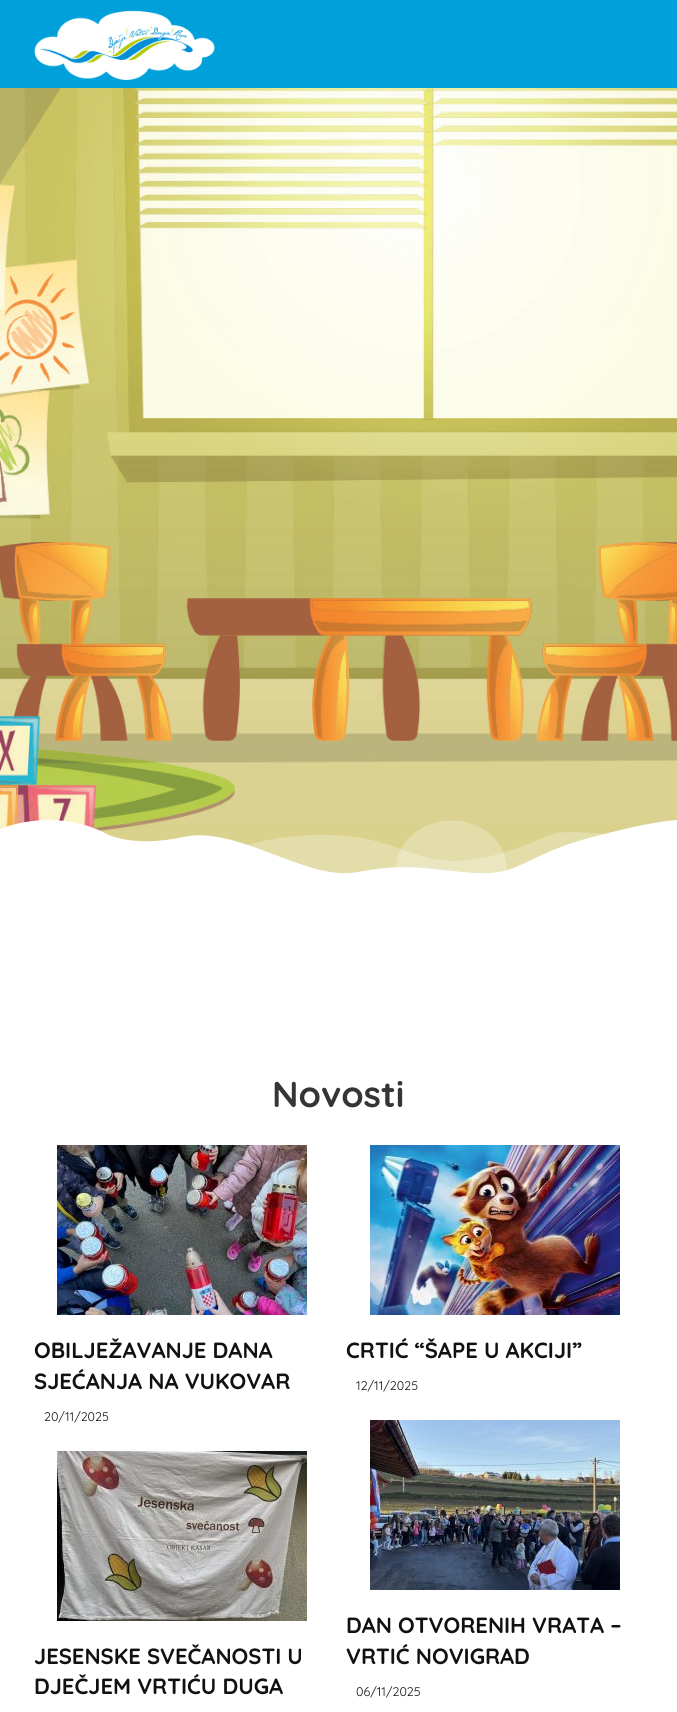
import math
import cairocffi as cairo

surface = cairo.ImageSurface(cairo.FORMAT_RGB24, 677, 1712)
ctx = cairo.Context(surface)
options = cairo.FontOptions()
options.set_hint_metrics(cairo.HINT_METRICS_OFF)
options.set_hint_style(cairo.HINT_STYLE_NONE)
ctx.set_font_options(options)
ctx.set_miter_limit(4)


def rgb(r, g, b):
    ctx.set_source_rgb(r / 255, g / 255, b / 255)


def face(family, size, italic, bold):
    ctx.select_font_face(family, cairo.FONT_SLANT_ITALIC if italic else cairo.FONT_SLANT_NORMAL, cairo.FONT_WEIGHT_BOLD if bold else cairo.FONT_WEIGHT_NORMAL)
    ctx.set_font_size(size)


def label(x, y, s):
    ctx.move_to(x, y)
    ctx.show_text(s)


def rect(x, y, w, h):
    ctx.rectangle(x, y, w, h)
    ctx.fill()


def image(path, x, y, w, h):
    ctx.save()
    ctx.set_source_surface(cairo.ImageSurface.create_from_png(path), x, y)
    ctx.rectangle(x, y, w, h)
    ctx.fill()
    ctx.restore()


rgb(255, 255, 255)
ctx.paint()
rgb(0, 160, 219)
rect(0, 0, 677, 88)
image('image0.png', 34, 10, 181, 70)
image('image1.png', 0, 88, 677, 786)
ctx.save()
ctx.rectangle(0, 815, 677, 75)
ctx.clip()
ctx.set_source_rgba(1, 1, 1, 0.25)
ctx.new_path()
ctx.move_to(451.5, 820.5)
ctx.curve_to(482, 820.5, 507, 842.5, 507, 869.5)
ctx.curve_to(507, 896.5, 482, 918.5, 451.5, 918.5)
ctx.curve_to(421, 918.5, 396, 896.5, 396, 869.5)
ctx.curve_to(396, 842.5, 421, 820.5, 451.5, 820.5)
ctx.close_path()
ctx.fill()
ctx.restore()
ctx.set_source_rgba(1, 1, 1, 0.25)
ctx.new_path()
ctx.move_to(154, 890)
ctx.curve_to(154, 890, 217, 838, 313, 835)
ctx.curve_to(408, 832, 412, 875, 491, 856)
ctx.curve_to(570, 836, 525, 825, 632, 837)
ctx.curve_to(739, 848, 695, 890, 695, 890)
ctx.close_path()
ctx.fill()
rgb(255, 255, 255)
ctx.new_path()
ctx.move_to(0, 829)
ctx.curve_to(0, 829, 50, 807, 103, 832)
ctx.curve_to(103, 832, 128, 849, 183, 837)
ctx.curve_to(239, 825, 306, 882, 358, 872)
ctx.curve_to(411, 862, 429, 870, 475, 873)
ctx.curve_to(520, 876, 523, 856, 589, 838)
ctx.curve_to(655, 820, 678, 820, 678, 820)
ctx.line_to(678, 890)
ctx.line_to(0, 890)
ctx.close_path()
ctx.fill()
face('Quicksand', 36, 0, 1)
rgb(53, 53, 53)
label(272, 1107, 'Novosti')
image('image2.png', 57, 1145, 250, 170)
face('Quicksand', 22, 0, 1)
rgb(17, 17, 17)
label(34, 1358, 'OBILJEŽAVANJE DANA')
label(34, 1389, 'SJEĆANJA NA VUKOVAR')
face('Quicksand', 12.5, 0, 0)
label(44, 1421, '20/11/2025')
image('image3.png', 370, 1145, 250, 170)
face('Quicksand', 22, 0, 1)
label(346, 1358, 'CRTIĆ “ŠAPE U AKCIJI”')
face('Quicksand', 12.5, 0, 0)
label(356, 1390, '12/11/2025')
image('image4.png', 57, 1451, 250, 170)
face('Quicksand', 22, 0, 1)
label(34, 1664, 'JESENSKE SVEČANOSTI U')
label(34, 1694, 'DJEČJEM VRTIĆU DUGA')
image('image5.png', 370, 1420, 250, 170)
label(346, 1633, 'DAN OTVORENIH VRATA –')
label(346, 1664, 'VRTIĆ NOVIGRAD')
face('Quicksand', 12.5, 0, 0)
label(356, 1696, '06/11/2025')
surface.write_to_png('render.png')
